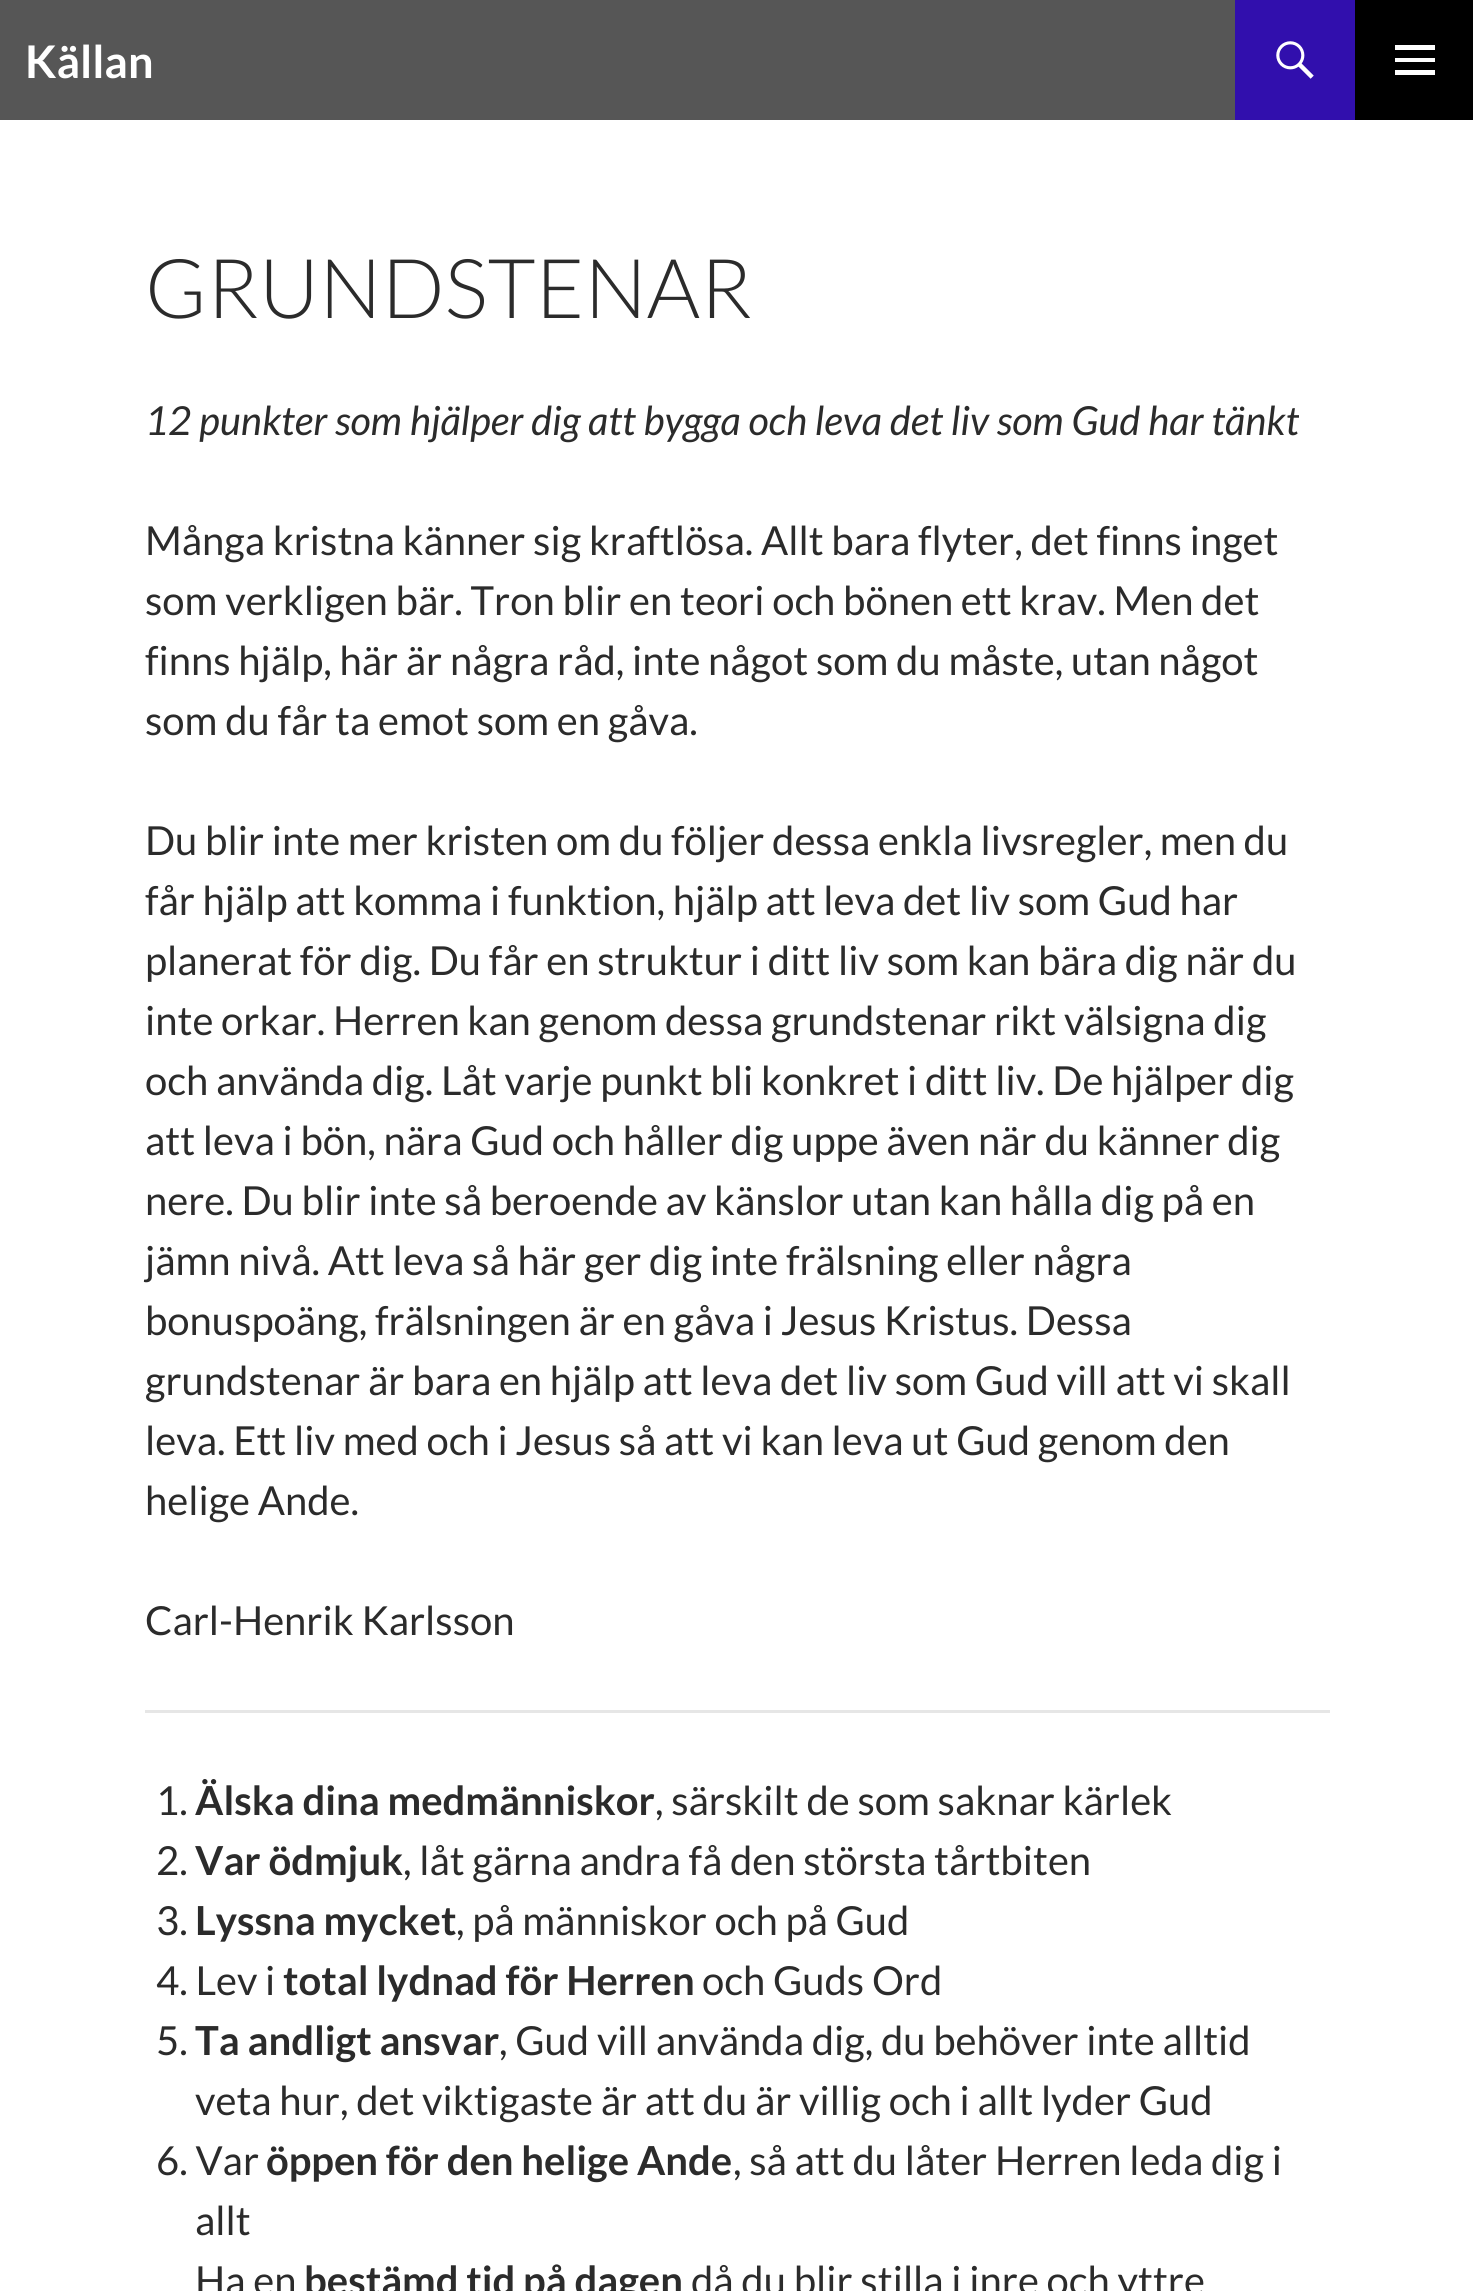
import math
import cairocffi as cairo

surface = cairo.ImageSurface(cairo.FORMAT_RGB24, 1473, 2291)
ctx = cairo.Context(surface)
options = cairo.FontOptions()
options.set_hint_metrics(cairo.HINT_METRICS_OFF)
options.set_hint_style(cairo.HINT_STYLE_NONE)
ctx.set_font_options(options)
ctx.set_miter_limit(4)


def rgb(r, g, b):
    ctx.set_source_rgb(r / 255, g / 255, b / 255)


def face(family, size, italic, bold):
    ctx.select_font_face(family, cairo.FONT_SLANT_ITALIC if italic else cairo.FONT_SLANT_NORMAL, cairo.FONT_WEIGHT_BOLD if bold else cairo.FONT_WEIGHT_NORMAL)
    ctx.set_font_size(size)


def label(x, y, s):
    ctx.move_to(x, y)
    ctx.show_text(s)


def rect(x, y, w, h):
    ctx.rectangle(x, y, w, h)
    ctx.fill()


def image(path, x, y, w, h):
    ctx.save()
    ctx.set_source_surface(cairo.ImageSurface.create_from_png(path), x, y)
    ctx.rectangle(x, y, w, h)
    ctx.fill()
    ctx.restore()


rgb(255, 255, 255)
ctx.paint()
rgb(86, 86, 86)
rect(0, 0, 1235, 120)
face('Lato', 45, 0, 1)
rgb(255, 255, 255)
label(25, 78, 'Källan')
rgb(49, 15, 173)
rect(1235, 0, 120, 120)
image('image0.png', 1276, 41, 38, 38)
rgb(0, 0, 0)
rect(1355, 0, 118, 120)
rgb(255, 255, 255)
ctx.new_path()
ctx.move_to(1395, 75)
ctx.line_to(1395, 70)
ctx.line_to(1435, 70)
ctx.line_to(1435, 75)
ctx.close_path()
ctx.move_to(1395, 62)
ctx.line_to(1395, 58)
ctx.line_to(1435, 58)
ctx.line_to(1435, 62)
ctx.close_path()
ctx.move_to(1395, 50)
ctx.line_to(1395, 45)
ctx.line_to(1435, 45)
ctx.line_to(1435, 50)
ctx.close_path()
ctx.fill()
face('Lato Light', 82.5, 0, 0)
rgb(43, 43, 43)
label(145, 318, 'GRUNDSTENAR')
face('Lato', 40, 1, 0)
label(145, 435, '12 punkter som hjälper dig att bygga och leva det liv som Gud har tänkt')
face('Lato', 40, 0, 0)
label(145, 555, 'Många kristna känner sig kraftlösa. Allt bara flyter, det finns inget')
label(145, 615, 'som verkligen bär. Tron blir en teori och bönen ett krav. Men det')
label(145, 675, 'finns hjälp, här är några råd, inte något som du måste, utan något')
label(145, 735, 'som du får ta emot som en gåva.')
label(145, 855, 'Du blir inte mer kristen om du följer dessa enkla livsregler, men du')
label(145, 915, 'får hjälp att komma i funktion, hjälp att leva det liv som Gud har')
label(145, 975, 'planerat för dig. Du får en struktur i ditt liv som kan bära dig när du')
label(145, 1035, 'inte orkar. Herren kan genom dessa grundstenar rikt välsigna dig')
label(145, 1095, 'och använda dig. Låt varje punkt bli konkret i ditt liv. De hjälper dig')
label(145, 1155, 'att leva i bön, nära Gud och håller dig uppe även när du känner dig')
label(145, 1215, 'nere. Du blir inte så beroende av känslor utan kan hålla dig på en')
label(145, 1275, 'jämn nivå. Att leva så här ger dig inte frälsning eller några')
label(145, 1335, 'bonuspoäng, frälsningen är en gåva i Jesus Kristus. Dessa')
label(145, 1395, 'grundstenar är bara en hjälp att leva det liv som Gud vill att vi skall')
label(145, 1455, 'leva. Ett liv med och i Jesus så att vi kan leva ut Gud genom den')
label(145, 1515, 'helige Ande.')
label(145, 1635, 'Carl-Henrik Karlsson')
rgb(230, 230, 230)
rect(145, 1710, 1185, 3)
rgb(43, 43, 43)
label(156, 1815, '1.')
face('Lato', 40, 0, 1)
label(195, 1815, 'Älska dina medmänniskor')
face('Lato', 40, 0, 0)
label(655, 1815, ', särskilt de som saknar kärlek')
label(156, 1875, '2.')
face('Lato', 40, 0, 1)
label(195, 1875, 'Var ödmjuk')
face('Lato', 40, 0, 0)
label(403, 1875, ', låt gärna andra få den största tårtbiten')
label(156, 1935, '3.')
face('Lato', 40, 0, 1)
label(195, 1935, 'Lyssna mycket')
face('Lato', 40, 0, 0)
label(456, 1935, ', på människor och på Gud')
label(156, 1995, '4. Lev i')
face('Lato', 40, 0, 1)
label(283, 1995, 'total lydnad för Herren')
face('Lato', 40, 0, 0)
label(702, 1995, 'och Guds Ord')
label(156, 2055, '5.')
face('Lato', 40, 0, 1)
label(195, 2055, 'Ta andligt ansvar')
face('Lato', 40, 0, 0)
label(499, 2055, ', Gud vill använda dig, du behöver inte alltid')
label(195, 2115, 'veta hur, det viktigaste är att du är villig och i allt lyder Gud')
label(156, 2175, '6. Var')
face('Lato', 40, 0, 1)
label(266, 2175, 'öppen för den helige Ande')
face('Lato', 40, 0, 0)
label(733, 2175, ', så att du låter Herren leda dig i')
label(195, 2235, 'allt')
label(195, 2295, 'Ha en')
face('Lato', 40, 0, 1)
label(304, 2295, 'bestämd tid på dagen')
face('Lato', 40, 0, 0)
label(691, 2295, 'då du blir stilla i inre och yttre')
surface.write_to_png('render.png')
